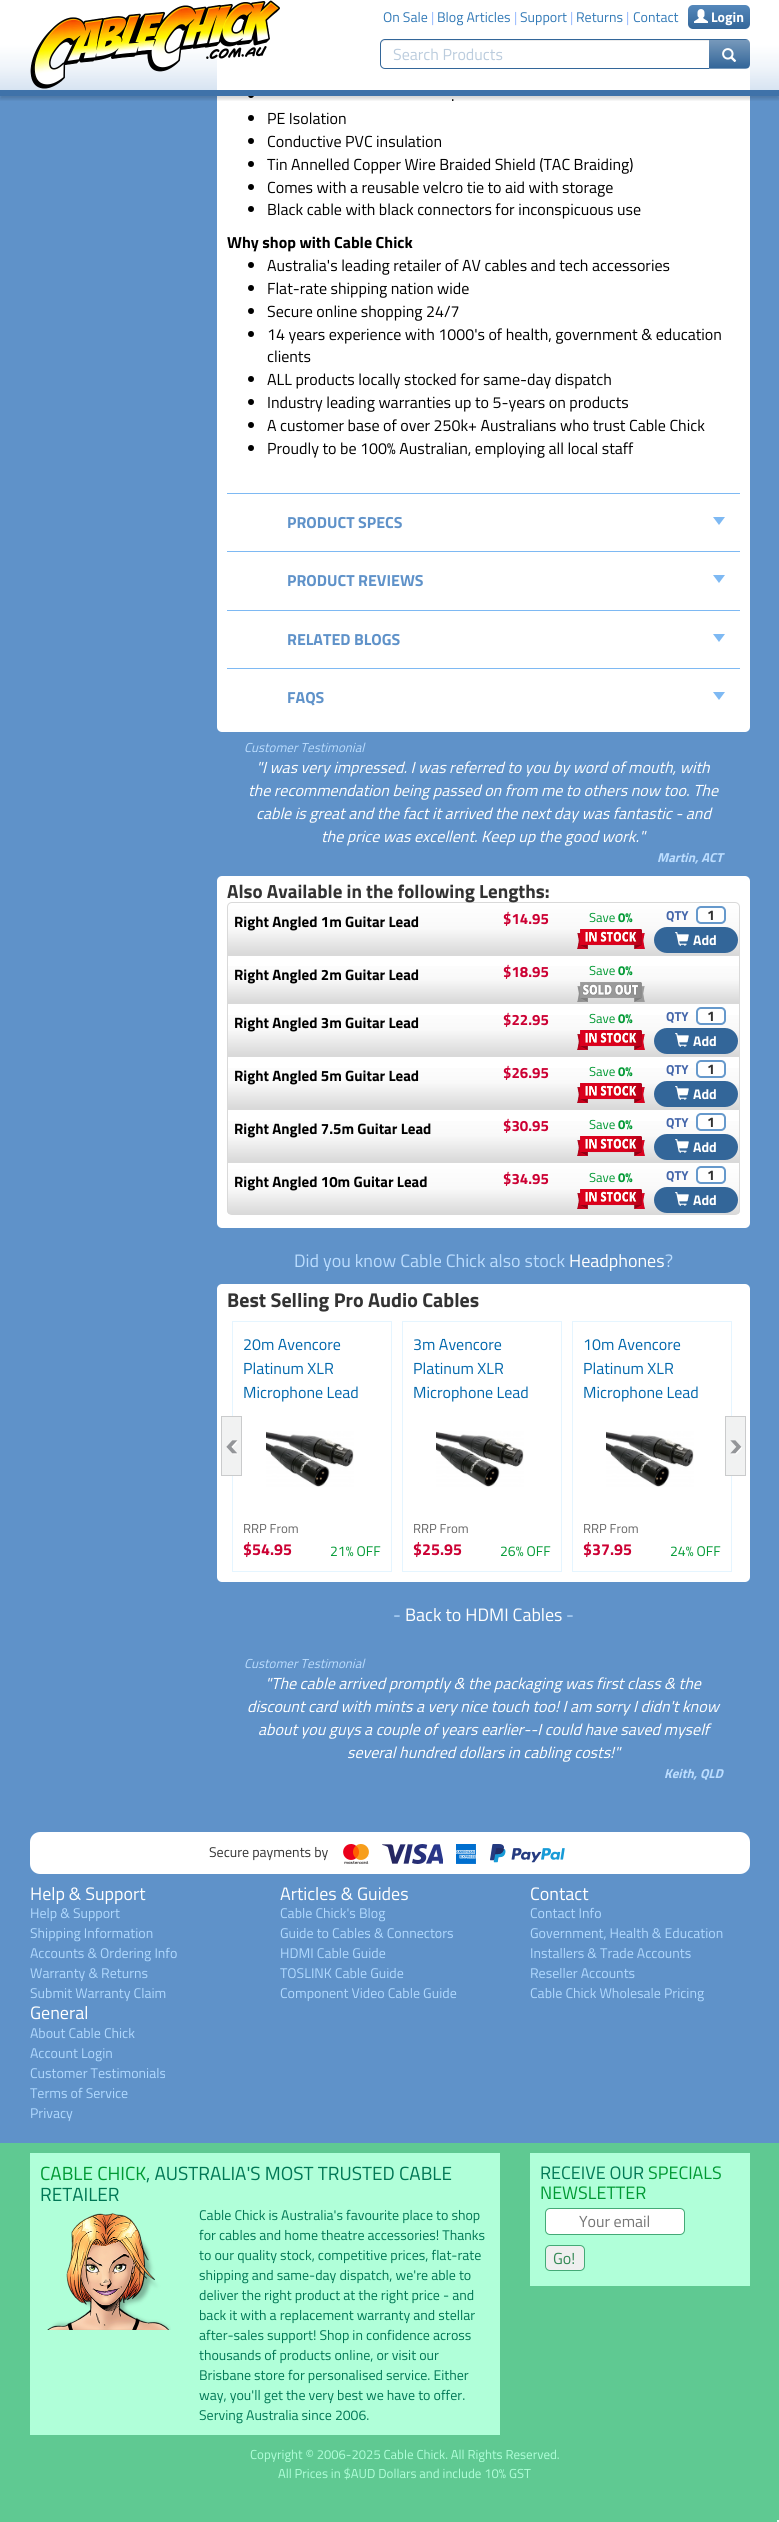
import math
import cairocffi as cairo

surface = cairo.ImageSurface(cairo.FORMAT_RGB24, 779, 2522)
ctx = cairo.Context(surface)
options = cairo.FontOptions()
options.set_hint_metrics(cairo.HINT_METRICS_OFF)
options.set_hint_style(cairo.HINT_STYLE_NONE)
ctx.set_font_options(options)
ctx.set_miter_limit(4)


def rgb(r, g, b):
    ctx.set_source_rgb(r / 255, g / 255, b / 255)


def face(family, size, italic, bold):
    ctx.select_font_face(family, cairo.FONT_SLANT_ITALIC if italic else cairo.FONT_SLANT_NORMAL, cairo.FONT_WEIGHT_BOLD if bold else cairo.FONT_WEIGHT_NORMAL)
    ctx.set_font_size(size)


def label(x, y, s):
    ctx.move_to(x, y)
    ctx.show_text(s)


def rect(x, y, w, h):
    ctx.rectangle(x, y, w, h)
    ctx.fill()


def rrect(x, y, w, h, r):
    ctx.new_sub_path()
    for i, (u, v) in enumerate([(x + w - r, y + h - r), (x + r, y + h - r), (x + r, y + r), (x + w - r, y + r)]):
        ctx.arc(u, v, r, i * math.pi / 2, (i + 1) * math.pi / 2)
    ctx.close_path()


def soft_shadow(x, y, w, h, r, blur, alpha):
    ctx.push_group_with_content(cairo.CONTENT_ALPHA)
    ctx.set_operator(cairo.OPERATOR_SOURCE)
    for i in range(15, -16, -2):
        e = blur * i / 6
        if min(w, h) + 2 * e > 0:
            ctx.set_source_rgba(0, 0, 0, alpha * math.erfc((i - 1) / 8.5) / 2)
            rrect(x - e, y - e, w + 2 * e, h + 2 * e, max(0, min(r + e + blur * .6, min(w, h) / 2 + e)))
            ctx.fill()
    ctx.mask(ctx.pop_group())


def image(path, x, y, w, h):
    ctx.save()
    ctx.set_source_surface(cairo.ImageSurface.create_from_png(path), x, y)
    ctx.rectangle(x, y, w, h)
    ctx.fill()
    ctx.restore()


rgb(95, 146, 201)
ctx.paint()
rgb(255, 255, 255)
rrect(217, -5, 533, 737, 5)
ctx.fill()
rgb(0, 0, 0)
ctx.arc(251, 50, 3, 0, 2 * math.pi)
ctx.fill()
ctx.arc(251, 95, 3, 0, 2 * math.pi)
ctx.fill()
ctx.save()
ctx.rectangle(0, 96, 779, 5)
ctx.clip()
rgb(0, 0, 0)
soft_shadow(0, 3, 779, 96, 0, 2, 0.18)
ctx.restore()
gradient = cairo.LinearGradient(390, 0, 390, 90)
gradient.add_color_stop_rgba(0, 1, 1, 1, 1)
gradient.add_color_stop_rgba(0.5, 1, 1, 1, 1)
gradient.add_color_stop_rgba(0.75, 1, 1, 1, 0.9)
gradient.add_color_stop_rgba(1, 1, 1, 1, 0.75)
ctx.set_source(gradient)
rect(0, 0, 779, 90)
rgb(63, 114, 169)
rect(0, 90, 779, 6)
image('image0.png', 30, 0, 250, 89)
face('Titillium Web', 14, 0, 0)
rgb(51, 122, 183)
label(383, 22, 'On Sale')
rgb(153, 187, 255)
label(431, 22, '|')
rgb(51, 122, 183)
label(437, 22, 'Blog Articles')
rgb(153, 187, 255)
label(514, 22, '|')
rgb(51, 122, 183)
label(520, 22, 'Support')
rgb(153, 187, 255)
label(570, 22, '|')
rgb(51, 122, 183)
label(576, 22, 'Returns')
rgb(153, 187, 255)
label(626, 22, '|')
rgb(51, 122, 183)
label(633, 22, 'Contact')
gradient = cairo.LinearGradient(719, 5, 719, 29)
gradient.add_color_stop_rgba(0, 0.333, 0.533, 0.733, 1)
gradient.add_color_stop_rgba(1, 0.2, 0.4, 0.6, 1)
ctx.set_source(gradient)
rrect(688, 5, 62, 24, 5)
ctx.fill()
image('image1.png', 694, 9, 14, 14)
face('Titillium Web', 14, 0, 1)
rgb(255, 255, 255)
label(711, 22, 'Login')
rgb(236, 236, 236)
ctx.new_path()
ctx.move_to(385, 41)
ctx.line_to(709, 41)
ctx.line_to(709, 40)
ctx.line_to(385, 40)
ctx.curve_to(383, 40, 381, 42, 381, 44)
ctx.line_to(381, 45)
ctx.curve_to(381, 43, 383, 41, 385, 41)
ctx.close_path()
ctx.fill()
ctx.new_path()
ctx.move_to(385, 39.5)
ctx.line_to(709.5, 39.5)
ctx.line_to(709.5, 68.5)
ctx.line_to(385, 68.5)
ctx.curve_to(382.5, 68.5, 380.5, 66.5, 380.5, 64)
ctx.line_to(380.5, 44)
ctx.curve_to(380.5, 41.5, 382.5, 39.5, 385, 39.5)
ctx.close_path()
rgb(51, 102, 153)
ctx.set_line_width(1)
ctx.stroke()
face('Titillium Web', 16, 0, 0)
rgb(187, 204, 221)
label(393, 60, 'Search Products')
ctx.save()
ctx.new_path()
ctx.move_to(709, 39)
ctx.line_to(745, 39)
ctx.curve_to(748, 39, 750, 41, 750, 44)
ctx.line_to(750, 64)
ctx.curve_to(750, 67, 748, 69, 745, 69)
ctx.line_to(709, 69)
ctx.close_path()
ctx.clip()
gradient = cairo.LinearGradient(730, 12, 730, 40)
gradient.add_color_stop_rgba(0, 0.467, 0.6, 0.733, 1)
gradient.add_color_stop_rgba(1, 0.2, 0.4, 0.6, 1)
ctx.set_source(gradient)
rect(709, 39, 41, 1)
gradient = cairo.LinearGradient(730, 40, 730, 68)
gradient.add_color_stop_rgba(0, 0.467, 0.6, 0.733, 1)
gradient.add_color_stop_rgba(1, 0.2, 0.4, 0.6, 1)
ctx.set_source(gradient)
rect(709, 40, 41, 28)
gradient = cairo.LinearGradient(730, 68, 730, 96)
gradient.add_color_stop_rgba(0, 0.467, 0.6, 0.733, 1)
gradient.add_color_stop_rgba(1, 0.2, 0.4, 0.6, 1)
ctx.set_source(gradient)
rect(709, 68, 41, 1)
ctx.restore()
image('image2.png', 722, 48, 15, 14)
rgb(0, 0, 0)
label(451, 101, '.')
ctx.new_path()
ctx.arc(251, 118, 3, 0, 2 * math.pi)
ctx.fill()
label(267, 124, 'PE Isolation')
ctx.new_path()
ctx.arc(251, 141, 3, 0, 2 * math.pi)
ctx.fill()
label(267, 147, 'Conductive PVC insulation')
ctx.new_path()
ctx.arc(251, 164, 3, 0, 2 * math.pi)
ctx.fill()
label(267, 170, 'Tin Annelled Copper Wire Braided Shield (TAC Braiding)')
ctx.new_path()
ctx.arc(251, 187, 3, 0, 2 * math.pi)
ctx.fill()
label(267, 193, 'Comes with a reusable velcro tie to aid with storage')
ctx.new_path()
ctx.arc(251, 209, 3, 0, 2 * math.pi)
ctx.fill()
label(267, 215, 'Black cable with black connectors for inconspicuous use')
face('Titillium Web', 16, 0, 1)
label(227, 248, 'Why shop with Cable Chick')
ctx.new_path()
ctx.arc(251, 265, 3, 0, 2 * math.pi)
ctx.fill()
face('Titillium Web', 16, 0, 0)
label(267, 271, 'Australia\'s leading retailer of AV cables and tech accessories')
ctx.new_path()
ctx.arc(251, 288, 3, 0, 2 * math.pi)
ctx.fill()
label(267, 294, 'Flat-rate shipping nation wide')
ctx.new_path()
ctx.arc(251, 311, 3, 0, 2 * math.pi)
ctx.fill()
label(267, 317, 'Secure online shopping 24/7')
ctx.new_path()
ctx.arc(251, 334, 3, 0, 2 * math.pi)
ctx.fill()
label(267, 340, '14 years experience with 1000\'s of health, government & education')
label(267, 362, 'clients')
ctx.new_path()
ctx.arc(251, 379, 3, 0, 2 * math.pi)
ctx.fill()
label(267, 385, 'ALL products locally stocked for same-day dispatch')
ctx.new_path()
ctx.arc(251, 402, 3, 0, 2 * math.pi)
ctx.fill()
label(267, 408, 'Industry leading warranties up to 5-years on products')
ctx.new_path()
ctx.arc(251, 425, 3, 0, 2 * math.pi)
ctx.fill()
label(267, 431, 'A customer base of over 250k+ Australians who trust Cable Chick')
ctx.new_path()
ctx.arc(251, 448, 3, 0, 2 * math.pi)
ctx.fill()
label(267, 454, 'Proudly to be 100% Australian, employing all local staff')
rgb(126, 185, 243)
rect(227, 493, 513, 1)
face('Titillium Web', 16, 0, 1)
rgb(95, 146, 201)
label(287, 528, 'PRODUCT SPECS')
rgb(126, 185, 243)
ctx.new_path()
ctx.move_to(713, 517)
ctx.line_to(725, 517)
ctx.line_to(719, 525)
ctx.close_path()
ctx.fill()
rect(227, 551, 513, 1)
rgb(95, 146, 201)
label(287, 586, 'PRODUCT REVIEWS')
rgb(126, 185, 243)
ctx.new_path()
ctx.move_to(713, 575)
ctx.line_to(725, 575)
ctx.line_to(719, 583)
ctx.close_path()
ctx.fill()
rect(227, 610, 513, 1)
rgb(95, 146, 201)
label(287, 645, 'RELATED BLOGS')
rgb(126, 185, 243)
ctx.new_path()
ctx.move_to(713, 634)
ctx.line_to(725, 634)
ctx.line_to(719, 642)
ctx.close_path()
ctx.fill()
rect(227, 668, 513, 1)
rgb(95, 146, 201)
label(287, 703, 'FAQS')
rgb(126, 185, 243)
ctx.new_path()
ctx.move_to(713, 692)
ctx.line_to(725, 692)
ctx.line_to(719, 700)
ctx.close_path()
ctx.fill()
face('Titillium Web', 13, 1, 0)
rgb(187, 221, 255)
label(244, 752, 'Customer Testimonial')
face('Titillium Web', 16, 1, 0)
rgb(255, 255, 255)
label(256, 773, '"I was very impressed. I was referred to you by word of mouth, with')
label(248, 796, 'the recommendation being passed on from me to others now too. The')
label(256, 819, 'cable is great and the fact it arrived the next day was fantastic - and')
label(321, 842, 'the price was excellent. Keep up the good work."')
face('Titillium Web', 13, 1, 1)
rgb(187, 221, 255)
label(657, 862, 'Martin, ACT')
rgb(255, 255, 255)
rrect(217, 876, 533, 352, 5)
ctx.fill()
ctx.save()
ctx.new_path()
ctx.move_to(232, 902)
ctx.line_to(735, 902)
ctx.curve_to(738, 902, 740, 904, 740, 907)
ctx.line_to(740, 955)
ctx.line_to(227, 955)
ctx.line_to(227, 907)
ctx.curve_to(227, 904, 229, 902, 232, 902)
ctx.close_path()
ctx.clip()
gradient = cairo.LinearGradient(484, 903, 484, 954)
gradient.add_color_stop_rgba(0, 1, 1, 1, 1)
gradient.add_color_stop_rgba(0.5, 0.976, 0.976, 0.976, 1)
gradient.add_color_stop_rgba(1, 0.851, 0.851, 0.851, 1)
ctx.set_source(gradient)
rect(227, 903, 513, 51)
ctx.restore()
ctx.new_path()
ctx.move_to(232, 902.5)
ctx.line_to(735, 902.5)
ctx.curve_to(737.5, 902.5, 739.5, 904.5, 739.5, 907)
ctx.line_to(739.5, 954.5)
ctx.line_to(227.5, 954.5)
ctx.line_to(227.5, 907)
ctx.curve_to(227.5, 904.5, 229.5, 902.5, 232, 902.5)
ctx.close_path()
rgb(217, 217, 217)
ctx.stroke()
face('Titillium Web', 19, 0, 1)
rgb(51, 51, 51)
label(227, 898, 'Also Available in the following Lengths:')
face('Titillium Web', 15, 0, 1)
rgb(0, 0, 0)
label(234, 927, 'Right Angled 1m Guitar Lead')
rgb(204, 0, 51)
label(503, 924, '$14.95')
face('Titillium Web', 13, 0, 0)
rgb(0, 153, 51)
label(589, 922, 'Save')
face('Titillium Web', 13, 0, 1)
label(618, 922, '0%')
image('image3.png', 577, 929, 68, 20)
rgb(68, 102, 170)
label(666, 920, 'QTY')
rgb(255, 255, 255)
rrect(697, 907, 28, 16, 4)
ctx.fill_preserve()
rgb(102, 153, 204)
ctx.set_line_width(2)
ctx.stroke()
face('Titillium Web', 14, 0, 1)
rgb(51, 51, 51)
label(707, 920, '1')
rgb(51, 102, 153)
rrect(655.5, 928.5, 81, 23, 11.5)
ctx.fill_preserve()
ctx.set_line_width(3)
ctx.stroke()
image('image4.png', 675, 932, 14, 14)
rgb(255, 255, 255)
label(693, 945, 'Add')
gradient = cairo.LinearGradient(484, 956, 484, 1002)
gradient.add_color_stop_rgba(0, 1, 1, 1, 1)
gradient.add_color_stop_rgba(0.5, 0.976, 0.976, 0.976, 1)
gradient.add_color_stop_rgba(1, 0.851, 0.851, 0.851, 1)
ctx.set_source(gradient)
rect(228, 966, 511, 36)
ctx.rectangle(227.5, 955.5, 512, 47)
rgb(217, 217, 217)
ctx.set_line_width(1)
ctx.stroke()
face('Titillium Web', 15, 0, 1)
rgb(0, 0, 0)
label(234, 980, 'Right Angled 2m Guitar Lead')
rgb(204, 0, 51)
label(503, 977, '$18.95')
face('Titillium Web', 13, 0, 0)
rgb(0, 153, 51)
label(589, 975, 'Save')
face('Titillium Web', 13, 0, 1)
label(618, 975, '0%')
image('image5.png', 577, 982, 68, 20)
gradient = cairo.LinearGradient(484, 1004, 484, 1055)
gradient.add_color_stop_rgba(0, 1, 1, 1, 1)
gradient.add_color_stop_rgba(0.5, 0.976, 0.976, 0.976, 1)
gradient.add_color_stop_rgba(1, 0.851, 0.851, 0.851, 1)
ctx.set_source(gradient)
rect(228, 1015, 511, 40)
ctx.rectangle(227.5, 1003.5, 512, 52)
rgb(217, 217, 217)
ctx.stroke()
face('Titillium Web', 15, 0, 1)
rgb(0, 0, 0)
label(234, 1028, 'Right Angled 3m Guitar Lead')
rgb(204, 0, 51)
label(503, 1025, '$22.95')
face('Titillium Web', 13, 0, 0)
rgb(0, 153, 51)
label(589, 1023, 'Save')
face('Titillium Web', 13, 0, 1)
label(618, 1023, '0%')
image('image3.png', 577, 1030, 68, 20)
rgb(68, 102, 170)
label(666, 1021, 'QTY')
rgb(255, 255, 255)
rrect(697, 1008, 28, 16, 4)
ctx.fill_preserve()
rgb(102, 153, 204)
ctx.set_line_width(2)
ctx.stroke()
face('Titillium Web', 14, 0, 1)
rgb(51, 51, 51)
label(707, 1021, '1')
rgb(51, 102, 153)
rrect(655.5, 1029.5, 81, 23, 11.5)
ctx.fill_preserve()
ctx.set_line_width(3)
ctx.stroke()
image('image4.png', 675, 1033, 14, 14)
rgb(255, 255, 255)
label(693, 1046, 'Add')
gradient = cairo.LinearGradient(484, 1057, 484, 1108)
gradient.add_color_stop_rgba(0, 1, 1, 1, 1)
gradient.add_color_stop_rgba(0.5, 0.976, 0.976, 0.976, 1)
gradient.add_color_stop_rgba(1, 0.851, 0.851, 0.851, 1)
ctx.set_source(gradient)
rect(228, 1068, 511, 40)
ctx.rectangle(227.5, 1056.5, 512, 52)
rgb(217, 217, 217)
ctx.set_line_width(1)
ctx.stroke()
face('Titillium Web', 15, 0, 1)
rgb(0, 0, 0)
label(234, 1081, 'Right Angled 5m Guitar Lead')
rgb(204, 0, 51)
label(503, 1078, '$26.95')
face('Titillium Web', 13, 0, 0)
rgb(0, 153, 51)
label(589, 1076, 'Save')
face('Titillium Web', 13, 0, 1)
label(618, 1076, '0%')
image('image3.png', 577, 1083, 68, 20)
rgb(68, 102, 170)
label(666, 1074, 'QTY')
rgb(255, 255, 255)
rrect(697, 1061, 28, 16, 4)
ctx.fill_preserve()
rgb(102, 153, 204)
ctx.set_line_width(2)
ctx.stroke()
face('Titillium Web', 14, 0, 1)
rgb(51, 51, 51)
label(707, 1074, '1')
rgb(51, 102, 153)
rrect(655.5, 1082.5, 81, 23, 11.5)
ctx.fill_preserve()
ctx.set_line_width(3)
ctx.stroke()
image('image4.png', 675, 1086, 14, 14)
rgb(255, 255, 255)
label(693, 1099, 'Add')
gradient = cairo.LinearGradient(484, 1110, 484, 1161)
gradient.add_color_stop_rgba(0, 1, 1, 1, 1)
gradient.add_color_stop_rgba(0.5, 0.976, 0.976, 0.976, 1)
gradient.add_color_stop_rgba(1, 0.851, 0.851, 0.851, 1)
ctx.set_source(gradient)
rect(228, 1121, 511, 40)
ctx.rectangle(227.5, 1109.5, 512, 52)
rgb(217, 217, 217)
ctx.set_line_width(1)
ctx.stroke()
face('Titillium Web', 15, 0, 1)
rgb(0, 0, 0)
label(234, 1134, 'Right Angled 7.5m Guitar Lead')
rgb(204, 0, 51)
label(503, 1131, '$30.95')
face('Titillium Web', 13, 0, 0)
rgb(0, 153, 51)
label(589, 1129, 'Save')
face('Titillium Web', 13, 0, 1)
label(618, 1129, '0%')
image('image3.png', 577, 1136, 68, 20)
rgb(68, 102, 170)
label(666, 1127, 'QTY')
rgb(255, 255, 255)
rrect(697, 1114, 28, 16, 4)
ctx.fill_preserve()
rgb(102, 153, 204)
ctx.set_line_width(2)
ctx.stroke()
face('Titillium Web', 14, 0, 1)
rgb(51, 51, 51)
label(707, 1127, '1')
rgb(51, 102, 153)
rrect(655.5, 1135.5, 81, 23, 11.5)
ctx.fill_preserve()
ctx.set_line_width(3)
ctx.stroke()
image('image4.png', 675, 1139, 14, 14)
rgb(255, 255, 255)
label(693, 1152, 'Add')
ctx.save()
ctx.new_path()
ctx.move_to(227, 1162)
ctx.line_to(740, 1162)
ctx.line_to(740, 1210)
ctx.curve_to(740, 1213, 738, 1215, 735, 1215)
ctx.line_to(232, 1215)
ctx.curve_to(229, 1215, 227, 1213, 227, 1210)
ctx.close_path()
ctx.clip()
gradient = cairo.LinearGradient(484, 1163, 484, 1214)
gradient.add_color_stop_rgba(0, 1, 1, 1, 1)
gradient.add_color_stop_rgba(0.5, 0.976, 0.976, 0.976, 1)
gradient.add_color_stop_rgba(1, 0.851, 0.851, 0.851, 1)
ctx.set_source(gradient)
rect(227, 1163, 513, 51)
ctx.restore()
ctx.new_path()
ctx.move_to(227.5, 1162.5)
ctx.line_to(739.5, 1162.5)
ctx.line_to(739.5, 1210)
ctx.curve_to(739.5, 1212.5, 737.5, 1214.5, 735, 1214.5)
ctx.line_to(232, 1214.5)
ctx.curve_to(229.5, 1214.5, 227.5, 1212.5, 227.5, 1210)
ctx.close_path()
rgb(217, 217, 217)
ctx.set_line_width(1)
ctx.stroke()
face('Titillium Web', 15, 0, 1)
rgb(0, 0, 0)
label(234, 1187, 'Right Angled 10m Guitar Lead')
rgb(204, 0, 51)
label(503, 1184, '$34.95')
face('Titillium Web', 13, 0, 0)
rgb(0, 153, 51)
label(589, 1182, 'Save')
face('Titillium Web', 13, 0, 1)
label(618, 1182, '0%')
image('image3.png', 577, 1189, 68, 20)
rgb(68, 102, 170)
label(666, 1180, 'QTY')
rgb(255, 255, 255)
rrect(697, 1167, 28, 16, 4)
ctx.fill_preserve()
rgb(102, 153, 204)
ctx.set_line_width(2)
ctx.stroke()
face('Titillium Web', 14, 0, 1)
rgb(51, 51, 51)
label(707, 1180, '1')
rgb(51, 102, 153)
rrect(655.5, 1188.5, 81, 23, 11.5)
ctx.fill_preserve()
ctx.set_line_width(3)
ctx.stroke()
image('image4.png', 675, 1192, 14, 14)
rgb(255, 255, 255)
label(693, 1205, 'Add')
face('Titillium Web', 18, 0, 0)
rgb(187, 221, 255)
label(294, 1267, 'Did you know Cable Chick also stock')
rgb(255, 255, 255)
label(569, 1267, 'Headphones')
rgb(187, 221, 255)
label(665, 1267, '?')
rgb(255, 255, 255)
rrect(217, 1284, 533, 298, 5)
ctx.fill()
face('Titillium Web', 20, 0, 1)
rgb(51, 51, 51)
label(227, 1307, 'Best Selling Pro Audio Cables')
ctx.rectangle(232.5, 1321.5, 159, 250)
rgb(229, 245, 255)
ctx.set_line_width(1)
ctx.stroke()
rgb(241, 242, 242)
rect(222, 1417, 19, 58)
image('image6.png', 226, 1440, 12, 15)
ctx.rectangle(221.5, 1416.5, 20, 59)
rgb(202, 203, 204)
ctx.stroke()
face('Titillium Web', 16, 0, 0)
rgb(0, 103, 172)
label(243, 1350, '20m Avencore')
label(243, 1374, 'Platinum XLR')
label(243, 1398, 'Microphone Lead')
image('image7.png', 266, 1431, 88, 56)
face('Titillium Web', 13, 0, 0)
rgb(102, 102, 102)
label(243, 1533, 'RRP From')
face('Titillium Web', 16, 0, 1)
rgb(204, 0, 51)
label(243, 1555, '$54.95')
face('Titillium Web', 14, 0, 0)
rgb(0, 153, 51)
label(330, 1556, '21% OFF')
ctx.rectangle(402.5, 1321.5, 159, 250)
rgb(229, 245, 255)
ctx.stroke()
face('Titillium Web', 16, 0, 0)
rgb(0, 103, 172)
label(413, 1350, '3m Avencore')
label(413, 1374, 'Platinum XLR')
label(413, 1398, 'Microphone Lead')
image('image7.png', 436, 1431, 88, 56)
face('Titillium Web', 13, 0, 0)
rgb(102, 102, 102)
label(413, 1533, 'RRP From')
face('Titillium Web', 16, 0, 1)
rgb(204, 0, 51)
label(413, 1555, '$25.95')
face('Titillium Web', 14, 0, 0)
rgb(0, 153, 51)
label(500, 1556, '26% OFF')
ctx.rectangle(572.5, 1321.5, 159, 250)
rgb(229, 245, 255)
ctx.stroke()
face('Titillium Web', 16, 0, 0)
rgb(0, 103, 172)
label(583, 1350, '10m Avencore')
label(583, 1374, 'Platinum XLR')
label(583, 1398, 'Microphone Lead')
image('image7.png', 606, 1431, 88, 56)
face('Titillium Web', 13, 0, 0)
rgb(102, 102, 102)
label(583, 1533, 'RRP From')
face('Titillium Web', 16, 0, 1)
rgb(204, 0, 51)
label(583, 1555, '$37.95')
face('Titillium Web', 14, 0, 0)
rgb(0, 153, 51)
label(670, 1556, '24% OFF')
rgb(241, 242, 242)
rect(726, 1417, 19, 58)
image('image8.png', 730, 1440, 12, 15)
ctx.rectangle(725.5, 1416.5, 20, 59)
rgb(202, 203, 204)
ctx.stroke()
face('Titillium Web', 18, 0, 0)
rgb(187, 221, 255)
label(393, 1621, '-')
rgb(255, 255, 255)
label(405, 1621, 'Back to HDMI Cables')
rgb(187, 221, 255)
label(566, 1621, '-')
face('Titillium Web', 13, 1, 0)
label(244, 1668, 'Customer Testimonial')
face('Titillium Web', 16, 1, 0)
rgb(255, 255, 255)
label(265, 1689, '"The cable arrived promptly & the packaging was first class & the')
label(247, 1712, 'discount card with mints a very nice touch too! I am sorry I didn\'t know')
label(258, 1735, 'about you guys a couple of years earlier--I could have saved myself')
label(347, 1758, 'several hundred dollars in cabling costs!"')
face('Titillium Web', 13, 1, 1)
rgb(187, 221, 255)
label(664, 1778, 'Keith, QLD')
rgb(255, 255, 255)
rrect(30, 1832, 720, 42, 10)
ctx.fill()
face('Titillium Web', 14, 0, 0)
rgb(51, 51, 51)
label(209, 1857, 'Secure payments by')
image('image9.png', 343, 1844, 26, 20)
image('image10.png', 382, 1844, 61, 20)
image('image11.png', 456, 1844, 20, 20)
image('image12.png', 490, 1844, 75, 19)
face('Titillium Web', 18, 0, 0)
rgb(255, 255, 255)
label(30, 1900, 'Help & Support')
face('Titillium Web', 14, 0, 0)
rgb(176, 217, 255)
label(30, 1918, 'Help & Support')
label(30, 1938, 'Shipping Information')
label(30, 1958, 'Accounts & Ordering Info')
label(30, 1978, 'Warranty & Returns')
label(30, 1998, 'Submit Warranty Claim')
face('Titillium Web', 18, 0, 0)
rgb(255, 255, 255)
label(280, 1900, 'Articles & Guides')
face('Titillium Web', 14, 0, 0)
rgb(176, 217, 255)
label(280, 1918, 'Cable Chick\'s Blog')
label(280, 1938, 'Guide to Cables & Connectors')
label(280, 1958, 'HDMI Cable Guide')
label(280, 1978, 'TOSLINK Cable Guide')
label(280, 1998, 'Component Video Cable Guide')
face('Titillium Web', 18, 0, 0)
rgb(255, 255, 255)
label(530, 1900, 'Contact')
face('Titillium Web', 14, 0, 0)
rgb(176, 217, 255)
label(530, 1918, 'Contact Info')
label(530, 1938, 'Government, Health & Education')
label(530, 1958, 'Installers & Trade Accounts')
label(530, 1978, 'Reseller Accounts')
label(530, 1998, 'Cable Chick Wholesale Pricing')
face('Titillium Web', 18, 0, 0)
rgb(255, 255, 255)
label(30, 2019, 'General')
face('Titillium Web', 14, 0, 0)
rgb(176, 217, 255)
label(30, 2038, 'About Cable Chick')
label(30, 2058, 'Account Login')
label(30, 2078, 'Customer Testimonials')
label(30, 2098, 'Terms of Service')
label(30, 2118, 'Privacy')
rgb(95, 201, 146)
rect(0, 2143, 779, 379)
rgb(176, 255, 217)
rect(30, 2153, 470, 282)
face('Titillium Web', 19, 0, 0)
rgb(0, 153, 51)
label(40, 2180, 'CABLE CHICK')
rgb(0, 119, 85)
label(146, 2180, ', AUSTRALIA\'S MOST TRUSTED CABLE')
label(40, 2201, 'RETAILER')
image('image13.png', 47, 2213, 124, 117)
face('Titillium Web', 14, 0, 0)
label(199, 2220, 'Cable Chick is Australia\'s favourite place to shop')
label(199, 2240, 'for cables and home theatre accessories! Thanks')
label(199, 2260, 'to our quality stock, competitive prices, flat-rate')
label(199, 2280, 'shipping and same-day dispatch, we\'re able to')
label(199, 2300, 'deliver the right product at the right price - and')
label(199, 2320, 'back it with a replacement warranty and stellar')
label(199, 2340, 'after-sales support! Shop in confidence across')
label(199, 2360, 'thousands of products online, or visit our')
label(199, 2380, 'Brisbane store for personalised service. Either')
label(199, 2400, 'way, you\'ll get the very best we have to offer.')
label(199, 2420, 'Serving Australia since 2006.')
rgb(176, 255, 217)
rect(530, 2153, 220, 133)
face('Titillium Web', 18, 0, 0)
rgb(0, 119, 85)
label(540, 2179, 'RECEIVE OUR')
rgb(0, 153, 51)
label(648, 2179, 'SPECIALS')
label(540, 2199, 'NEWSLETTER')
rgb(255, 255, 255)
rrect(545.5, 2208.5, 139, 26, 4.5)
ctx.fill_preserve()
rgb(68, 170, 119)
ctx.stroke()
face('Titillium Web', 16, 0, 0)
rgb(117, 117, 117)
label(579, 2227, 'Your email')
rgb(239, 239, 239)
rrect(545.5, 2245.5, 39, 25, 4.5)
ctx.fill_preserve()
rgb(68, 170, 119)
ctx.stroke()
rgb(51, 136, 85)
label(553, 2264, 'Go!')
face('Titillium Web', 13, 0, 0)
rgb(176, 255, 217)
label(250, 2459, 'Copyright © 2006-2025 Cable Chick. All Rights Reserved.')
label(278, 2478, 'All Prices in $AUD Dollars and include 10% GST')
rgb(245, 245, 245)
rect(777, 2520, 2, 2)
surface.write_to_png('render.png')
